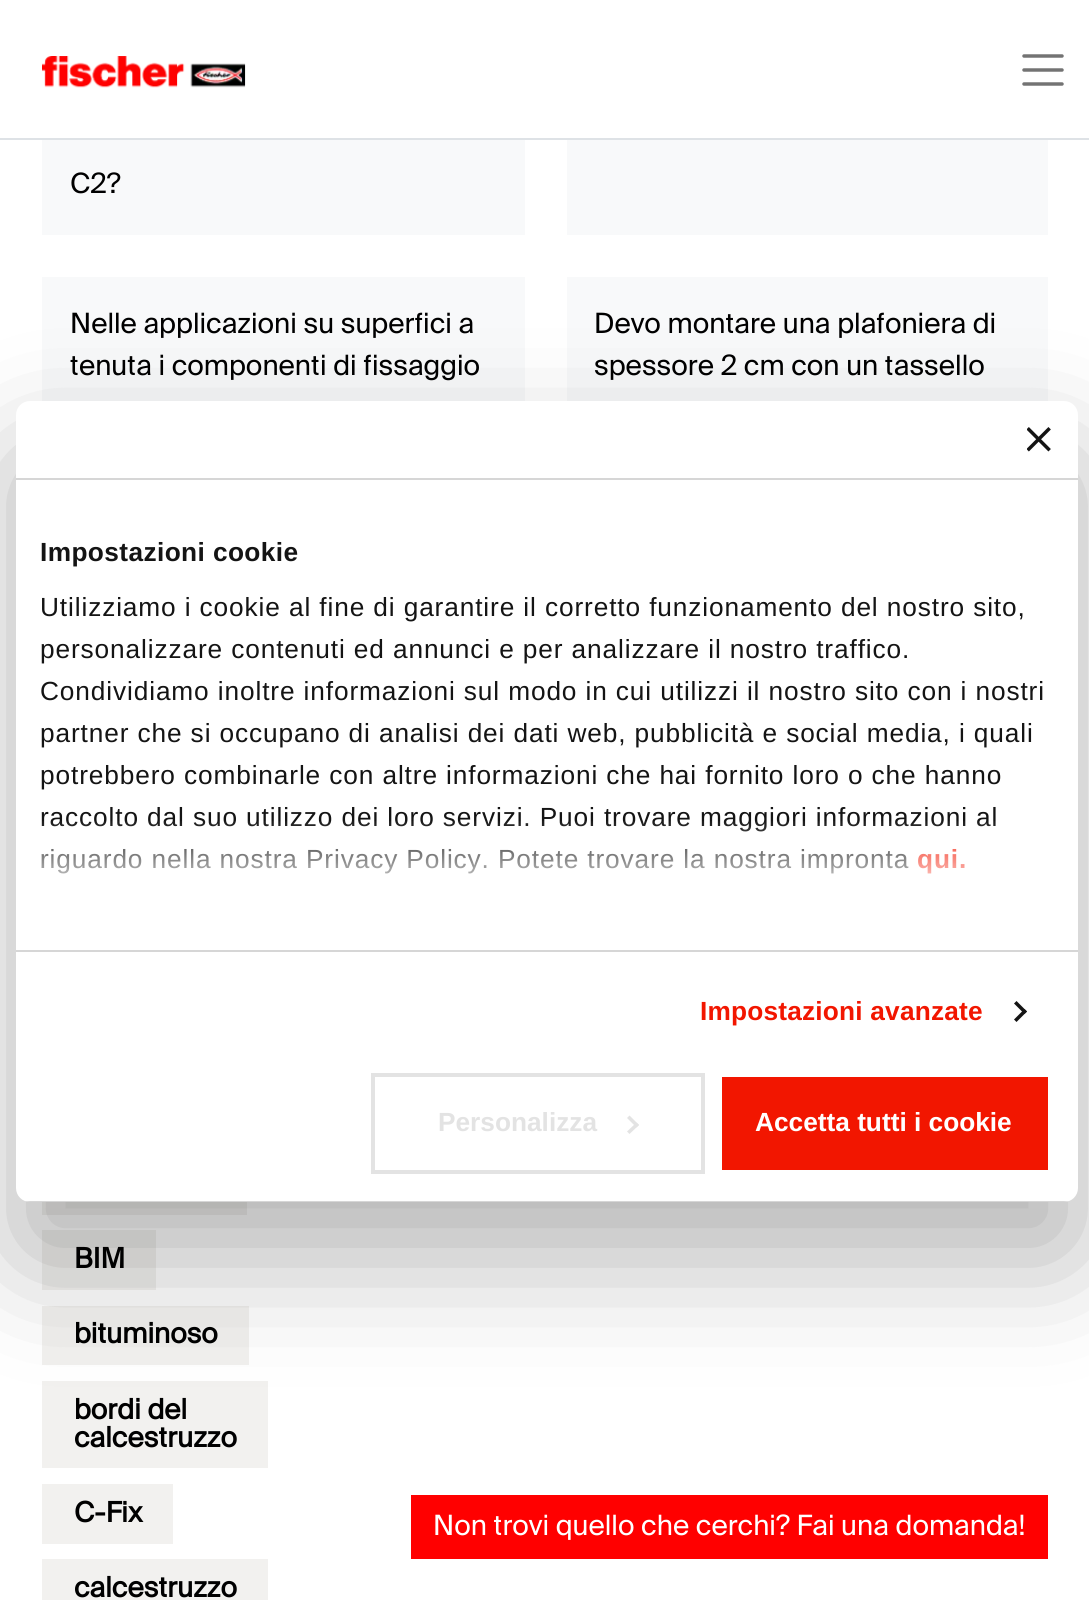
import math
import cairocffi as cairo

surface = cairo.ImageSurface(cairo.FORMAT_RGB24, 1089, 1600)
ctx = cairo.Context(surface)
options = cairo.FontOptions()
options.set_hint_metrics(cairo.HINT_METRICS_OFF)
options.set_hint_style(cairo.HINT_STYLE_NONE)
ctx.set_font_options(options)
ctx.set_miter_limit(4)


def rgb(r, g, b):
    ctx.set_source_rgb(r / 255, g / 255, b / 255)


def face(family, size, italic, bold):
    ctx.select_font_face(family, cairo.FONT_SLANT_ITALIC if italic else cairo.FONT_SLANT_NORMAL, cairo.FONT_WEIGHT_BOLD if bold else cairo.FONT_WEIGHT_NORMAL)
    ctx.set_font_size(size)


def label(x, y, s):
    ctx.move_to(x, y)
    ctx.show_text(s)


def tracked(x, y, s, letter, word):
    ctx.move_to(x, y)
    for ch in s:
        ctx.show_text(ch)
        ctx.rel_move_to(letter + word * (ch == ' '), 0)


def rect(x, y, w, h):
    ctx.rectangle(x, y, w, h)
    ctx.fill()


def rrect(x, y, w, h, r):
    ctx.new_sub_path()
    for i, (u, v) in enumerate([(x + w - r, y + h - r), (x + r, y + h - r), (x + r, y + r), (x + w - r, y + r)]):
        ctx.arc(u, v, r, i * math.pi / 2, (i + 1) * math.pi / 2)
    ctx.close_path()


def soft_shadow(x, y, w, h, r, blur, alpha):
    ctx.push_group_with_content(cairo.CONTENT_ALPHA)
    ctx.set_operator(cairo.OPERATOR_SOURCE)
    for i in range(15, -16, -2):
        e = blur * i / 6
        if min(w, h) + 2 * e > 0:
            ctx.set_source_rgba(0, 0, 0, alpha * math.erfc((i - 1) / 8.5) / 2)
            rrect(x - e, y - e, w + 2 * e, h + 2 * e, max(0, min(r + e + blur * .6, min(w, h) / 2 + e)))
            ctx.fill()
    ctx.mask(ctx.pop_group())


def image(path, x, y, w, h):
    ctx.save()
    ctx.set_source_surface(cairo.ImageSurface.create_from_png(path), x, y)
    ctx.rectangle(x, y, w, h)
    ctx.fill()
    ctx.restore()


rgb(255, 255, 255)
ctx.paint()
rgb(222, 226, 230)
rect(0, 138, 1089, 2)
image('image0.png', 42, 56, 204, 32)
ctx.new_path()
ctx.move_to(1024, 56)
ctx.line_to(1062, 56)
ctx.move_to(1024, 70)
ctx.line_to(1062, 70)
ctx.move_to(1024, 84)
ctx.line_to(1062, 84)
rgb(115, 115, 115)
ctx.set_line_width(3.5)
ctx.set_line_cap(cairo.LINE_CAP_ROUND)
ctx.stroke()
rgb(248, 249, 250)
rect(42, 140, 483, 95)
face('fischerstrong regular', 28, 0, 0)
rgb(0, 0, 0)
label(70, 193, 'C2?')
rgb(248, 249, 250)
rect(567, 140, 481, 95)
rect(42, 277, 483, 124)
rgb(0, 0, 0)
label(70, 333, 'Nelle applicazioni su superfici a')
label(70, 375, 'tenuta i componenti di fissaggio')
rgb(248, 249, 250)
rect(567, 277, 481, 124)
rgb(0, 0, 0)
label(594, 333, 'Devo montare una plafoniera di')
label(594, 375, 'spessore 2 cm con un tassello')
rgb(242, 241, 239)
rect(42, 1202, 205, 13)
rect(42, 1230, 114, 60)
face('fischerstrong regular', 28, 0, 1)
rgb(0, 0, 0)
label(74, 1268, 'BIM')
rgb(242, 241, 239)
rect(42, 1306, 207, 59)
rgb(0, 0, 0)
label(74, 1343, 'bituminoso')
rgb(242, 241, 239)
rect(42, 1381, 226, 87)
rgb(0, 0, 0)
label(74, 1419, 'bordi del')
label(74, 1447, 'calcestruzzo')
rgb(242, 241, 239)
rect(42, 1484, 131, 60)
rgb(0, 0, 0)
label(74, 1522, 'C-Fix')
rgb(242, 241, 239)
rect(42, 1559, 226, 41)
rgb(0, 0, 0)
label(74, 1597, 'calcestruzzo')
rgb(0, 0, 0)
soft_shadow(16, 457, 1062, 801, 14, 59.5, 0.3)
rgb(255, 255, 255)
rrect(16, 401, 1062, 801, 14)
ctx.fill()
rgb(214, 214, 214)
rect(16, 478, 1062, 2)
image('image1.png', 1027, 427, 24, 25)
rect(16, 950, 1062, 2)
face('Liberation Sans', 26.25, 0, 1)
rgb(20, 20, 20)
tracked(40, 561, 'Impostazioni cookie', 0.4, 0)
face('Liberation Sans', 26.25, 0, 0)
tracked(40, 616, 'Utilizziamo i cookie al fine di garantire il corretto funzionamento del nostro sito,', 0.88, 0)
tracked(40, 658, 'personalizzare contenuti ed annunci e per analizzare il nostro traffico.', 0.88, 0)
tracked(40, 700, 'Condividiamo inoltre informazioni sul modo in cui utilizzi il nostro sito con i nostri', 0.88, 0)
tracked(40, 742, 'partner che si occupano di analisi dei dati web, pubblicità e social media, i quali', 0.88, 0)
tracked(40, 784, 'potrebbero combinarle con altre informazioni che hai fornito loro o che hanno', 0.88, 0)
tracked(40, 826, 'raccolto dal suo utilizzo dei loro servizi. Puoi trovare maggiori informazioni al', 0.88, 0)
tracked(40, 868, 'riguardo nella nostra Privacy Policy. Potete trovare la nostra impronta', 0.88, 0)
face('Liberation Sans', 26.25, 0, 1)
rgb(242, 22, 0)
tracked(917, 868, 'qui.', 0.88, 0)
gradient = cairo.LinearGradient(535, 950, 535, 819)
gradient.add_color_stop_rgba(0, 1, 1, 1, 1)
gradient.add_color_stop_rgba(0.5, 1, 1, 1, 0.8)
gradient.add_color_stop_rgba(1, 1, 1, 1, 0)
ctx.set_source(gradient)
rect(42, 821, 954, 53)
rgb(242, 22, 0)
tracked(700, 1020, 'Impostazioni avanzate', 0.2, 0)
rgb(20, 20, 20)
ctx.new_path()
ctx.move_to(1016.5, 1001)
ctx.line_to(1027, 1011.5)
ctx.line_to(1024.5, 1014)
ctx.line_to(1014, 1003.5)
ctx.close_path()
ctx.fill()
ctx.new_path()
ctx.move_to(1024.5, 1009)
ctx.line_to(1027, 1011.5)
ctx.line_to(1016.5, 1022)
ctx.line_to(1014, 1019.5)
ctx.close_path()
ctx.fill()
ctx.save()
rrect(16, 401, 1062, 801, 14)
ctx.clip()
rgb(214, 214, 214)
rect(25, 1201, 1044, 1)
ctx.restore()
ctx.rectangle(373, 1075, 330, 97)
rgb(227, 227, 227)
ctx.set_line_width(4)
ctx.set_line_cap(cairo.LINE_CAP_BUTT)
ctx.stroke()
label(438, 1131, 'Personalizza')
ctx.new_path()
ctx.move_to(629.5, 1115.5)
ctx.line_to(639, 1125)
ctx.line_to(636.5, 1127.5)
ctx.line_to(627, 1118)
ctx.close_path()
ctx.fill()
ctx.new_path()
ctx.move_to(636.5, 1122.5)
ctx.line_to(639, 1125)
ctx.line_to(629.5, 1134)
ctx.line_to(627, 1131.5)
ctx.close_path()
ctx.fill()
rgb(242, 22, 0)
rect(722, 1077, 326, 93)
rgb(255, 255, 255)
label(755, 1131, 'Accetta tutti i cookie')
rgb(255, 0, 0)
rect(411, 1495, 637, 64)
face('fischerstrong regular', 28, 0, 0)
rgb(255, 255, 255)
label(433, 1535, 'Non trovi quello che cerchi? Fai una domanda!')
surface.write_to_png('render.png')
